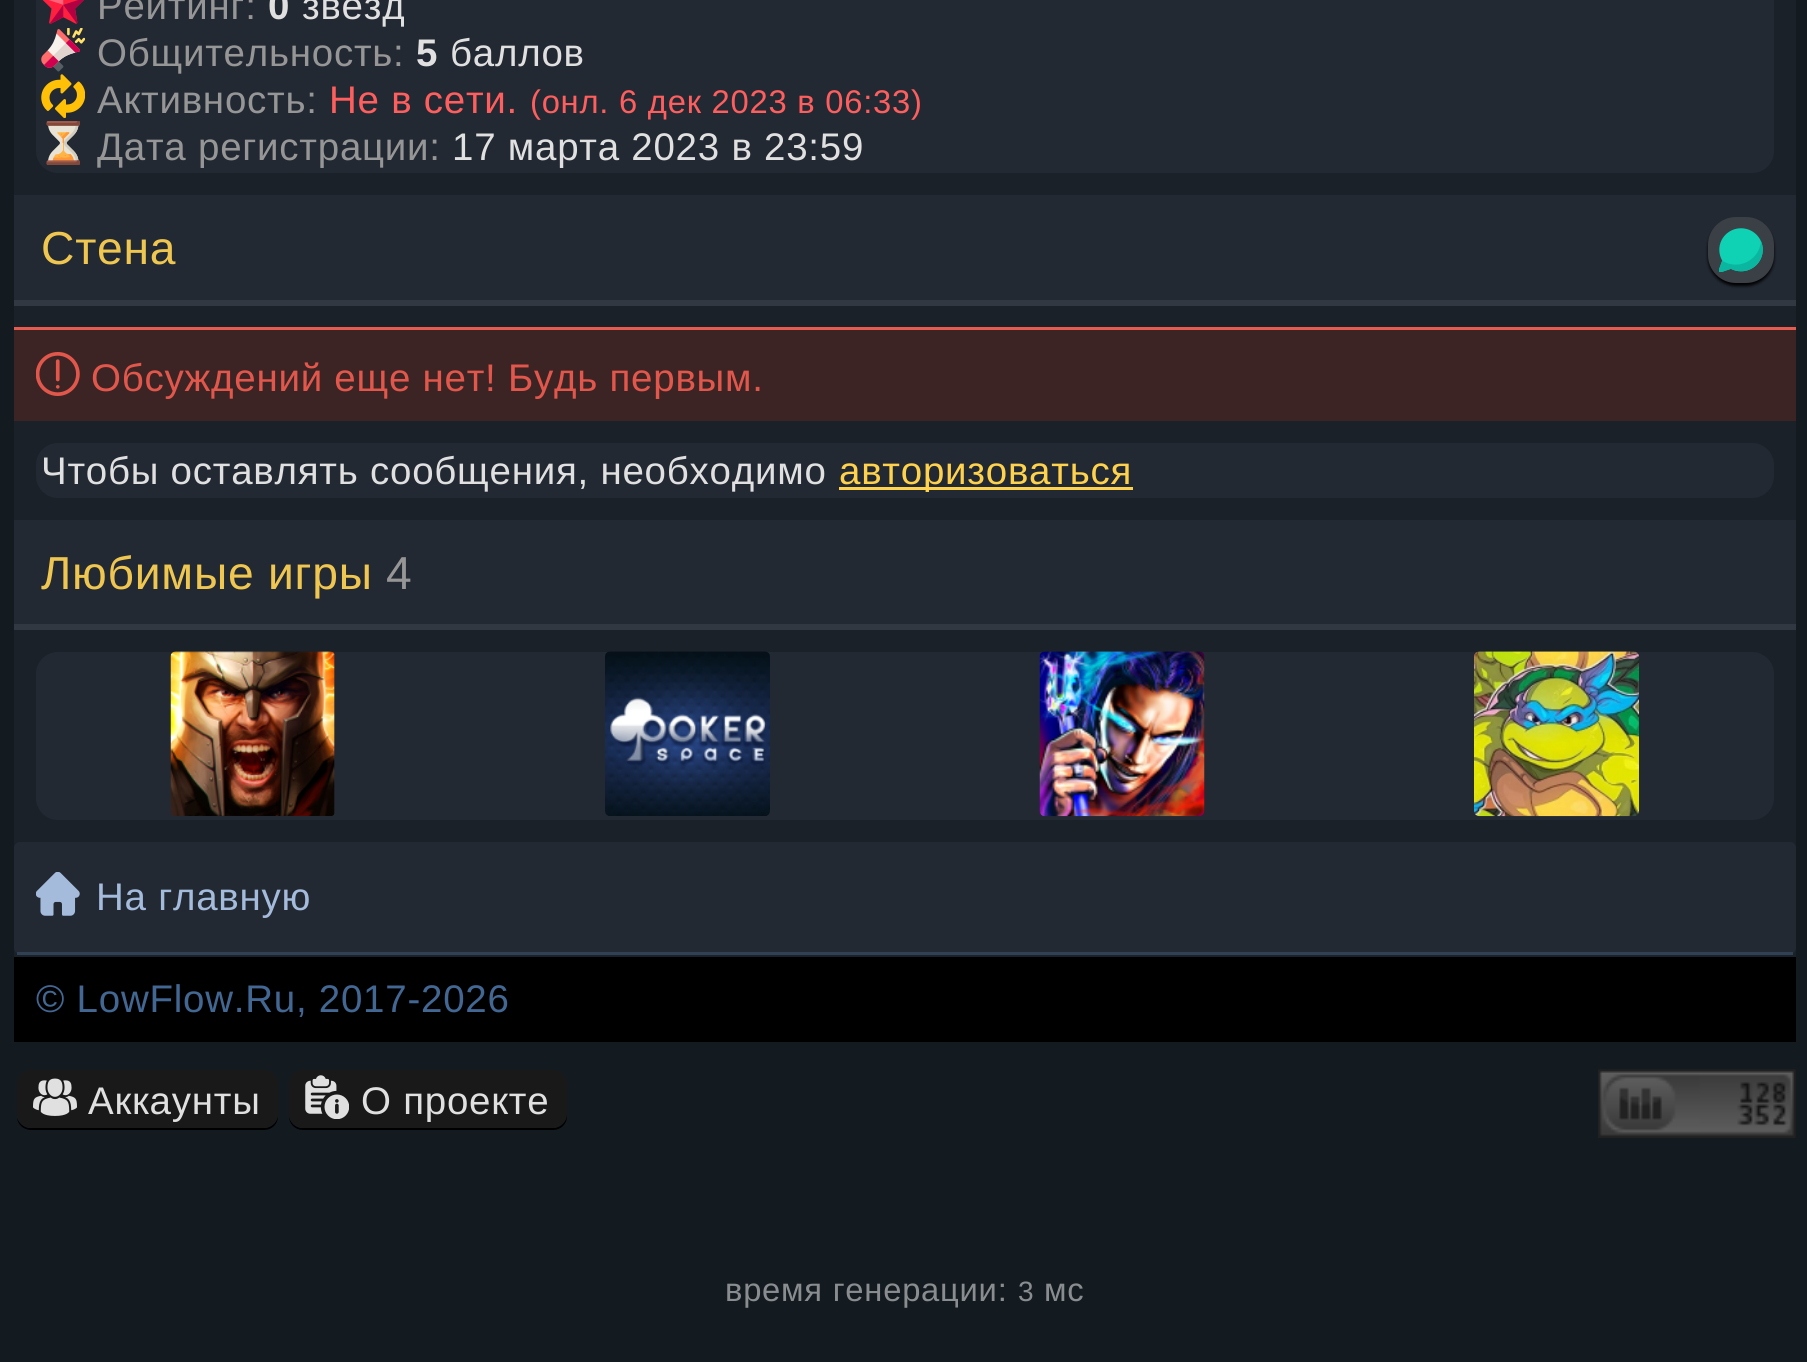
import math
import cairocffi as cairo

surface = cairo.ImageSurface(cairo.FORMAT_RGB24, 1807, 1362)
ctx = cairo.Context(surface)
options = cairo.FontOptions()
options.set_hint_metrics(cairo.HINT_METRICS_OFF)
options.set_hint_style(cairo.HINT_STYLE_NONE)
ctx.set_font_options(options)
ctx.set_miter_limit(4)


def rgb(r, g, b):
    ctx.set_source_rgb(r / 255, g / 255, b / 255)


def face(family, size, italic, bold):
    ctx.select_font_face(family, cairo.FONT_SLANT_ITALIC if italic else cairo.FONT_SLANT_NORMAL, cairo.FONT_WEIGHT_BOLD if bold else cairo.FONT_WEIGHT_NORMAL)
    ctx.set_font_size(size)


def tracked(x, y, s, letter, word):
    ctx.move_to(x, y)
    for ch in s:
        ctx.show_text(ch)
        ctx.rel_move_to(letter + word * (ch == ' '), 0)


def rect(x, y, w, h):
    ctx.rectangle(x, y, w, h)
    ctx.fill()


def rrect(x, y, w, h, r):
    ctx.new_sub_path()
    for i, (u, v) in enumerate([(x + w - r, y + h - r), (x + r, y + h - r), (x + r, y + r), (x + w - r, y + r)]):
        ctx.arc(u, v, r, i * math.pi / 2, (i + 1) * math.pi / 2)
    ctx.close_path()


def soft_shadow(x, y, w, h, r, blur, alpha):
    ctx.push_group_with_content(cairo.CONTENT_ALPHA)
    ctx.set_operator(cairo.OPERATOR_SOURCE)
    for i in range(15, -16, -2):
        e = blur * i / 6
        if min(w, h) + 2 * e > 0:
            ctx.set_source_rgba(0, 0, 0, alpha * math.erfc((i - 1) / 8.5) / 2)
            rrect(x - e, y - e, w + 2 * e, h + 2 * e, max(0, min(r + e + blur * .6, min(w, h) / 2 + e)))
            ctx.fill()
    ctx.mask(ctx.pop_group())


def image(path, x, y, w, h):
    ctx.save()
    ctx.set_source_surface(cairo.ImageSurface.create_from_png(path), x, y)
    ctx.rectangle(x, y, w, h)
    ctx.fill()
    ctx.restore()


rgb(19, 26, 32)
ctx.paint()
rgb(27, 33, 41)
rect(14, 0, 1782, 957)
rgb(34, 41, 51)
rrect(36, -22, 1738, 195, 22)
ctx.fill()
image('image0.png', 42, 0, 42, 24)
face('Liberation Sans', 38.5, 0, 0)
rgb(150, 150, 150)
tracked(97, 19, 'Рейтинг:', 0.75, 0)
face('Liberation Sans', 38.5, 0, 1)
rgb(224, 224, 224)
tracked(268, 19, '0', 0.75, 0)
face('Liberation Sans', 38.5, 0, 0)
tracked(302, 19, 'звезд', 0.75, 0)
image('image1.png', 41, 28, 44, 44)
rgb(150, 150, 150)
tracked(97, 66, 'Общительность:', 0.75, 0)
face('Liberation Sans', 38.5, 0, 1)
rgb(224, 224, 224)
tracked(416, 66, '5', 0.75, 0)
face('Liberation Sans', 38.5, 0, 0)
tracked(450, 66, 'баллов', 0.75, 0)
image('image2.png', 41, 74, 44, 44)
rgb(150, 150, 150)
tracked(97, 113, 'Активность:', 0.75, 0)
rgb(255, 94, 94)
tracked(329, 113, 'Не в сети.', 0.75, 0)
face('Liberation Sans', 32.75, 0, 0)
tracked(530, 113, '(онл. 6 дек 2023 в 06:33)', 0.75, 0)
image('image3.png', 46, 121, 34, 44)
face('Liberation Sans', 38.5, 0, 0)
rgb(150, 150, 150)
tracked(97, 160, 'Дата регистрации:', 0.75, 0)
rgb(224, 224, 224)
tracked(452, 160, '17 марта 2023 в 23:59', 0.75, 0)
rgb(34, 41, 51)
rect(14, 195, 1782, 105)
rgb(49, 56, 66)
rect(14, 300, 1782, 6)
face('Liberation Sans', 46.25, 0, 0)
rgb(239, 199, 80)
tracked(41, 264, 'Стена', 0.75, 0)
rgb(0, 0, 0)
soft_shadow(1708, 220, 66, 66, 28, 1.5, 1)
rgb(59, 63, 70)
rrect(1708, 217, 66, 66, 28)
ctx.fill()
image('image4.png', 1719, 228, 44, 44)
rgb(61, 36, 36)
rect(14, 330, 1782, 91)
rgb(229, 91, 82)
rect(14, 327, 1782, 3)
image('image5.png', 36, 352, 44, 44)
face('Liberation Sans', 38.5, 0, 0)
rgb(226, 87, 76)
tracked(91, 391, 'Обсуждений еще нет! Будь первым.', 0.75, 0)
rgb(34, 41, 51)
rrect(36, 443, 1738, 55, 22)
ctx.fill()
rgb(224, 224, 224)
tracked(41, 484, 'Чтобы оставлять сообщения, необходимо', 0.75, 0)
rgb(255, 210, 77)
rect(839, 487, 294, 3)
tracked(839, 484, 'авторизоваться', 0.75, 0)
rgb(34, 41, 51)
rect(14, 520, 1782, 104)
rgb(49, 56, 66)
rect(14, 624, 1782, 6)
face('Liberation Sans', 46.25, 0, 0)
rgb(239, 199, 80)
tracked(41, 589, 'Любимые игры', 0.75, 0)
rgb(150, 150, 150)
tracked(386, 589, '4', 0.75, 0)
rgb(34, 41, 51)
rrect(36, 652, 1738, 168, 22)
ctx.fill()
image('image6.png', 170, 651, 165, 165)
image('image7.png', 605, 651, 165, 165)
image('image8.png', 1039, 651, 166, 166)
image('image9.png', 1474, 651, 165, 166)
rrect(14, 842, 1782, 112, 6)
ctx.fill()
image('image10.png', 36, 872, 44, 44)
rgb(48, 65, 86)
rect(17, 952, 1776, 3)
face('Liberation Sans', 38.5, 0, 0)
rgb(165, 187, 220)
tracked(96, 910, 'На главную', 0.75, 0)
rgb(0, 0, 0)
rect(14, 957, 1782, 85)
rgb(67, 103, 147)
tracked(36, 1012, '© LowFlow.Ru, 2017-2026', 0.75, 0)
rgb(0, 0, 0)
ctx.new_path()
ctx.move_to(17, 1118)
ctx.curve_to(18, 1125, 24, 1130, 31, 1130)
ctx.line_to(264, 1130)
ctx.curve_to(272, 1130, 278, 1124, 278, 1116)
ctx.line_to(278, 1084)
ctx.line_to(278, 1114)
ctx.curve_to(278, 1121, 272, 1128, 264, 1128)
ctx.line_to(30, 1128)
ctx.curve_to(24, 1128, 19, 1123, 17, 1118)
ctx.close_path()
ctx.fill()
rgb(25, 25, 25)
rrect(17, 1070, 261, 58, 14)
ctx.fill()
image('image11.png', 33, 1078, 44, 38)
rgb(224, 224, 224)
tracked(88, 1114, 'Аккаунты', 0.75, 0)
rgb(0, 0, 0)
ctx.new_path()
ctx.move_to(289, 1116)
ctx.curve_to(289, 1124, 295, 1130, 303, 1130)
ctx.line_to(553, 1130)
ctx.curve_to(561, 1130, 567, 1124, 567, 1116)
ctx.line_to(567, 1087)
ctx.line_to(566, 1083)
ctx.line_to(566, 1114)
ctx.curve_to(566, 1121, 560, 1128, 553, 1128)
ctx.line_to(302, 1128)
ctx.curve_to(296, 1128, 290, 1123, 289, 1116)
ctx.close_path()
ctx.fill()
rgb(25, 25, 25)
rrect(289, 1070, 278, 58, 14)
ctx.fill()
image('image12.png', 305, 1075, 44, 44)
rgb(224, 224, 224)
tracked(361, 1114, 'О проекте', 0.75, 0)
image('image13.png', 1598, 1069, 198, 69)
face('Liberation Sans', 32.75, 0, 0)
rgb(137, 141, 144)
tracked(725, 1301, 'время генерации:', 0.75, 0)
face('Liberation Sans', 28, 0, 0)
tracked(1018, 1301, '3', 0.75, 0)
face('Liberation Sans', 32.75, 0, 0)
tracked(1044, 1301, 'мс', 0.75, 0)
surface.write_to_png('render.png')
